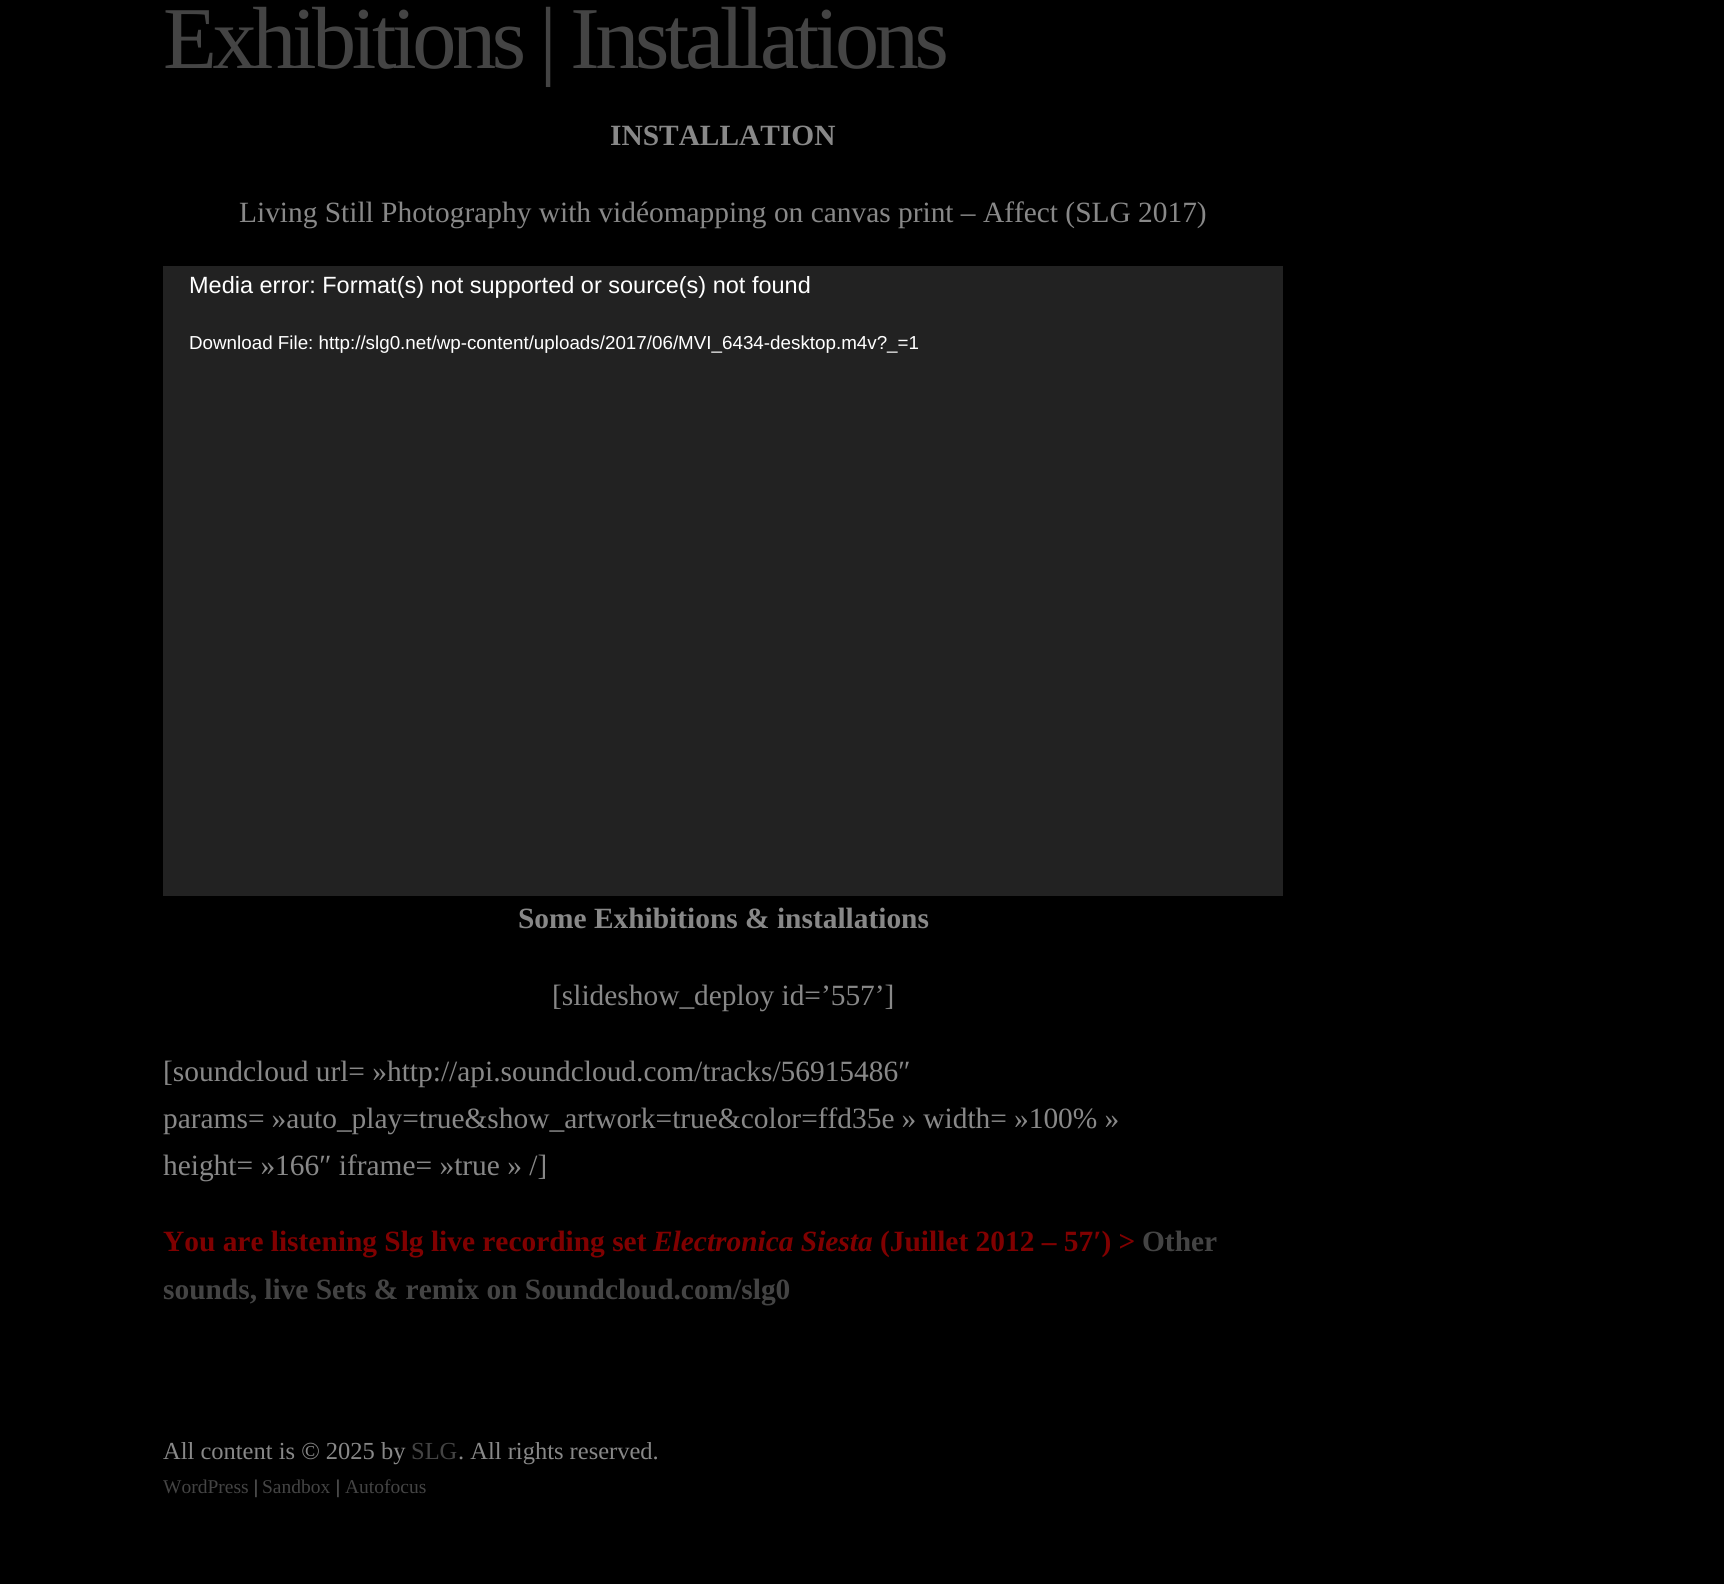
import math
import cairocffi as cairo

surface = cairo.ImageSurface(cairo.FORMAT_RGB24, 1724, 1584)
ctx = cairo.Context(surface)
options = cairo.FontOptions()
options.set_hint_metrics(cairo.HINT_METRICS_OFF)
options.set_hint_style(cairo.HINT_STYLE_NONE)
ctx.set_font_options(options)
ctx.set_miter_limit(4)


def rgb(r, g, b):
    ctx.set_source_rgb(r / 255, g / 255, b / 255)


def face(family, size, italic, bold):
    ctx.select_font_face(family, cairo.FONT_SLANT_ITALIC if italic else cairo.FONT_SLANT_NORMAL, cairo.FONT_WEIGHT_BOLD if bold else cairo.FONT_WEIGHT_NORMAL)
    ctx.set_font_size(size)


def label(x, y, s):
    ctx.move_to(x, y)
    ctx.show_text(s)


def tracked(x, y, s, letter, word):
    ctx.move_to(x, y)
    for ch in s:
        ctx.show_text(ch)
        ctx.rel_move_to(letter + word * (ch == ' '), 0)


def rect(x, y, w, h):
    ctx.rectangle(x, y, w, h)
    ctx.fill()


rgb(0, 0, 0)
ctx.paint()
face('Liberation Serif', 88.25, 0, 0)
rgb(68, 68, 68)
tracked(163, 68, 'Exhibitions | Installations', -4.4, 0)
face('Liberation Serif', 29.4, 0, 1)
rgb(136, 136, 136)
label(610, 145, 'INSTALLATION')
face('Liberation Serif', 29.4, 0, 0)
label(239, 222, 'Living Still Photography with vidéomapping on canvas print – Affect (SLG 2017)')
rgb(34, 34, 34)
rect(163, 266, 1120, 630)
face('Liberation Sans', 23.5, 0, 0)
rgb(255, 255, 255)
label(189, 293, 'Media error: Format(s) not supported or source(s) not found')
face('Liberation Sans', 18.8, 0, 0)
label(189, 349, 'Download File: http://slg0.net/wp-content/uploads/2017/06/MVI_6434-desktop.m4v?_=1')
face('Liberation Serif', 29.4, 0, 1)
rgb(136, 136, 136)
label(518, 928, 'Some Exhibitions & installations')
face('Liberation Serif', 29.4, 0, 0)
label(552, 1005, '[slideshow_deploy id=’557’]')
label(163, 1081, '[soundcloud url= »http://api.soundcloud.com/tracks/56915486″')
tracked(163, 1128, 'params= »auto_play=true&show_artwork=true&color=ffd35e » width= »100% »', 0, -0.25)
label(163, 1175, 'height= »166″ iframe= »true » /]')
face('Liberation Serif', 29.4, 0, 1)
rgb(128, 0, 0)
label(163, 1251, 'You are listening Slg live recording set')
face('Liberation Serif', 29.4, 1, 1)
label(653, 1251, 'Electronica Siesta')
face('Liberation Serif', 29.4, 0, 1)
label(880, 1251, '(Juillet 2012 – 57′) >')
rgb(68, 68, 68)
label(1142, 1251, 'Other')
label(163, 1299, 'sounds, live Sets & remix on Soundcloud.com/slg0')
face('Liberation Serif', 24.5, 0, 0)
rgb(136, 136, 136)
label(163, 1459, 'All content is © 2025 by')
rgb(68, 68, 68)
label(411, 1459, 'SLG')
rgb(136, 136, 136)
label(458, 1459, '. All rights reserved.')
face('Liberation Serif', 19.5, 0, 0)
rgb(68, 68, 68)
label(163, 1493, 'WordPress')
rgb(136, 136, 136)
label(254, 1493, '|')
rgb(68, 68, 68)
label(262, 1493, 'Sandbox')
rgb(136, 136, 136)
label(336, 1493, '|')
rgb(68, 68, 68)
label(345, 1493, 'Autofocus')
surface.write_to_png('render.png')
